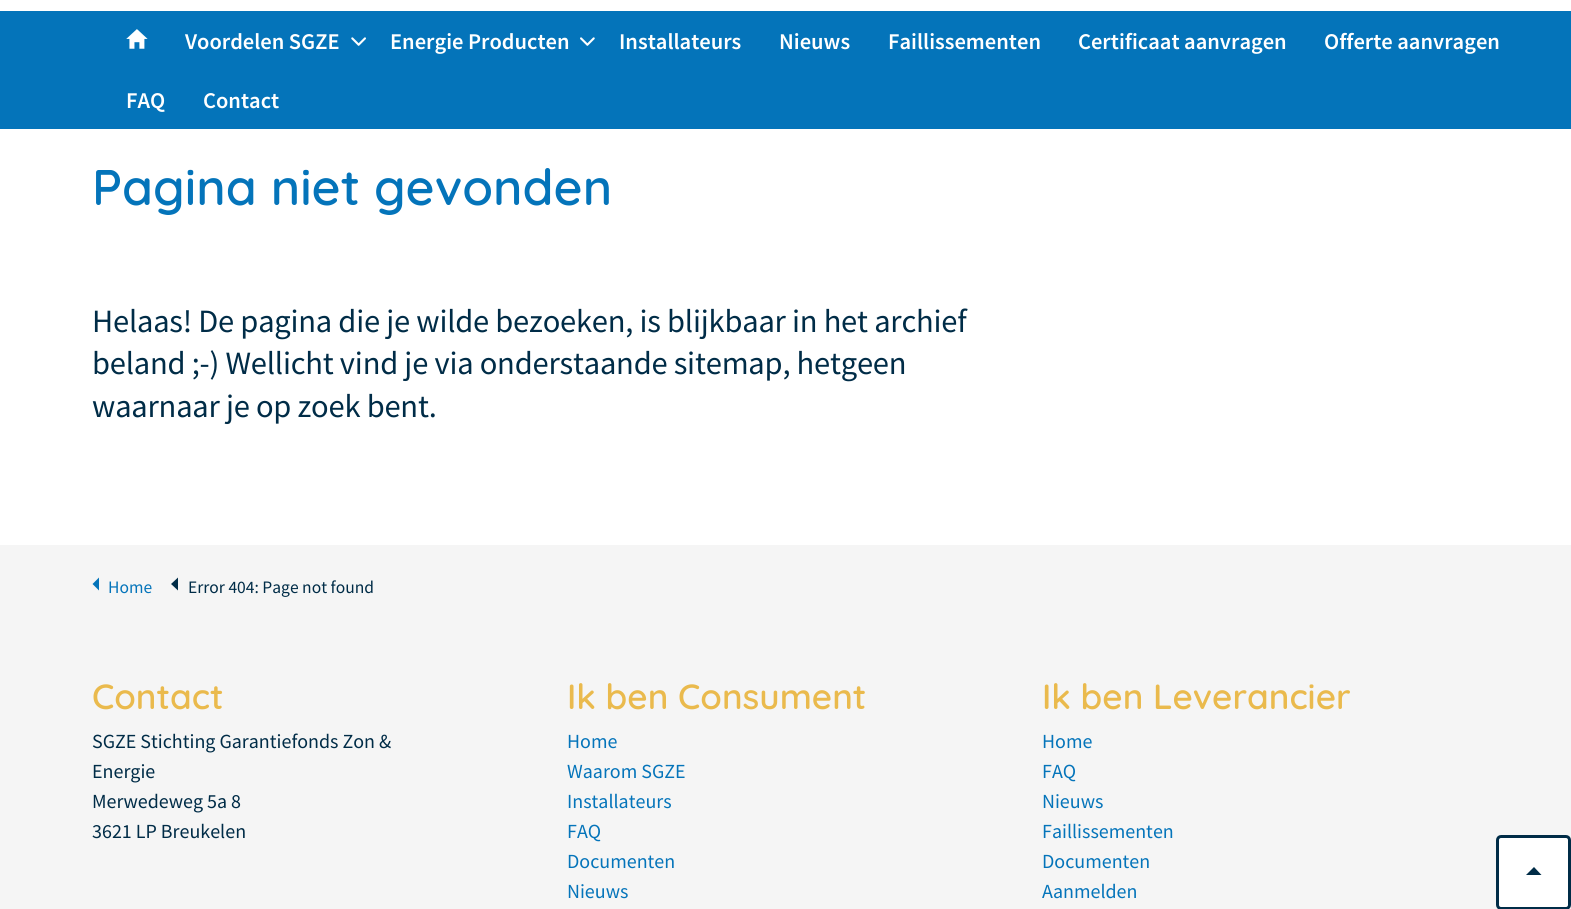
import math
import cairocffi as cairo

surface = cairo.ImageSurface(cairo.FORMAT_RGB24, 1571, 909)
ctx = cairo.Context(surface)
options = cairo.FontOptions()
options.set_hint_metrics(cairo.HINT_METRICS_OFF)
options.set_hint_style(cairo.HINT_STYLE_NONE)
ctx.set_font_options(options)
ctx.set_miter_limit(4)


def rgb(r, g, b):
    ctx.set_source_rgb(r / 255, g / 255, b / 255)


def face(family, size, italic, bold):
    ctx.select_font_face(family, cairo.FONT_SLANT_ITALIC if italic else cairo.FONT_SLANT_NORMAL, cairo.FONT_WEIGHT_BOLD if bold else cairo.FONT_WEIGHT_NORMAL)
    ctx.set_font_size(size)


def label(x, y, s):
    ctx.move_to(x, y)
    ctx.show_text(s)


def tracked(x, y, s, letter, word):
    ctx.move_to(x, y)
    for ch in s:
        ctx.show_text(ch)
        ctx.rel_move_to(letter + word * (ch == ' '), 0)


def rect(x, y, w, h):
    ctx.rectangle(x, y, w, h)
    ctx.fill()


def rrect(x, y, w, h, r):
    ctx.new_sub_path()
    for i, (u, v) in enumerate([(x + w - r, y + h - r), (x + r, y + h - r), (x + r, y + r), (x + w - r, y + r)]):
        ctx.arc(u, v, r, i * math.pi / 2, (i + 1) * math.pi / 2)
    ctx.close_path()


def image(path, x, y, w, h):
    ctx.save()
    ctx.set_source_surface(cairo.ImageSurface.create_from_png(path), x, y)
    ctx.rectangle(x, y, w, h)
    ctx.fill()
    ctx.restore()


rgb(255, 255, 255)
ctx.paint()
rgb(4, 116, 186)
rect(0, 11, 1571, 118)
image('image0.png', 126, 29, 22, 20)
face('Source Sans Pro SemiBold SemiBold', 22.5, 0, 0)
rgb(255, 255, 255)
label(185, 49, 'Voordelen SGZE')
image('image1.png', 351, 37, 15, 9)
label(390, 49, 'Energie Producten')
image('image2.png', 580, 37, 15, 9)
label(619, 49, 'Installateurs')
label(779, 49, 'Nieuws')
label(888, 49, 'Faillissementen')
label(1078, 49, 'Certificaat aanvragen')
label(1324, 49, 'Offerte aanvragen')
label(126, 108, 'FAQ')
label(203, 108, 'Contact')
face('Quicksand SemiBold', 50, 0, 0)
rgb(4, 116, 186)
label(92, 205, 'Pagina niet gevonden')
face('Source Sans Pro', 32.5, 0, 0)
rgb(0, 44, 71)
tracked(92, 332, 'Helaas! De pagina die je wilde bezoeken, is blijkbaar in het archief', -0.2, 0)
tracked(92, 374, 'beland ;-) Wellicht vind je via onderstaande sitemap, hetgeen', -0.2, 0)
tracked(92, 417, 'waarnaar je op zoek bent.', -0.2, 0)
rgb(245, 245, 245)
rect(0, 545, 1571, 364)
rgb(4, 116, 186)
ctx.new_path()
ctx.move_to(99, 577.5)
ctx.line_to(99, 590.5)
ctx.line_to(92.5, 584)
ctx.close_path()
ctx.fill()
face('Source Sans Pro', 17.5, 0, 0)
label(108, 593, 'Home')
rgb(0, 44, 71)
ctx.new_path()
ctx.move_to(178, 577.5)
ctx.line_to(178, 590.5)
ctx.line_to(171, 584)
ctx.close_path()
ctx.fill()
label(188, 593, 'Error 404: Page not found')
face('Quicksand SemiBold', 35, 0, 0)
rgb(234, 186, 77)
label(92, 709, 'Contact')
face('Source Sans Pro', 20, 0, 0)
rgb(0, 44, 71)
label(92, 748, 'SGZE Stichting Garantiefonds Zon &')
label(92, 778, 'Energie')
label(92, 808, 'Merwedeweg 5a 8')
label(92, 838, '3621 LP Breukelen')
face('Quicksand SemiBold', 35, 0, 0)
rgb(234, 186, 77)
label(567, 709, 'Ik ben Consument')
face('Source Sans Pro', 20, 0, 0)
rgb(4, 116, 186)
label(567, 748, 'Home')
label(567, 778, 'Waarom SGZE')
label(567, 808, 'Installateurs')
label(567, 838, 'FAQ')
label(567, 868, 'Documenten')
label(567, 898, 'Nieuws')
face('Quicksand SemiBold', 35, 0, 0)
rgb(234, 186, 77)
label(1042, 709, 'Ik ben Leverancier')
face('Source Sans Pro', 20, 0, 0)
rgb(4, 116, 186)
label(1042, 748, 'Home')
label(1042, 778, 'FAQ')
label(1042, 808, 'Nieuws')
label(1042, 838, 'Faillissementen')
label(1042, 868, 'Documenten')
label(1042, 898, 'Aanmelden')
rgb(255, 255, 255)
rrect(1497.5, 836.5, 72, 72, 3.5)
ctx.fill_preserve()
rgb(0, 44, 71)
ctx.set_line_width(3)
ctx.stroke()
ctx.new_path()
ctx.move_to(1526, 875)
ctx.line_to(1534, 867)
ctx.line_to(1541.5, 875)
ctx.close_path()
ctx.fill()
surface.write_to_png('render.png')
